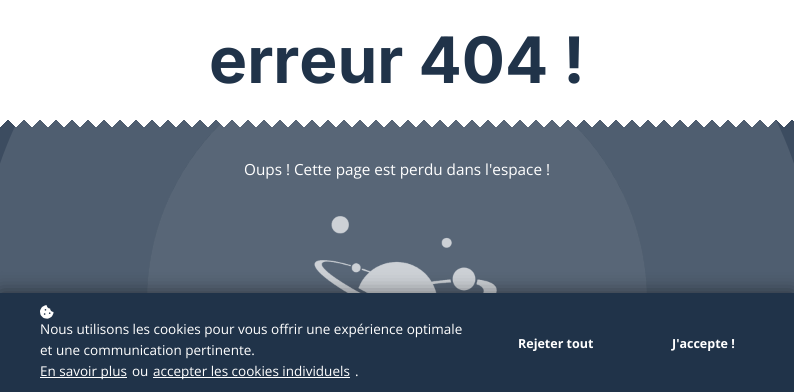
import math
import cairocffi as cairo

surface = cairo.ImageSurface(cairo.FORMAT_RGB24, 794, 392)
ctx = cairo.Context(surface)
options = cairo.FontOptions()
options.set_hint_metrics(cairo.HINT_METRICS_OFF)
options.set_hint_style(cairo.HINT_STYLE_NONE)
ctx.set_font_options(options)
ctx.set_miter_limit(4)


def rgb(r, g, b):
    ctx.set_source_rgb(r / 255, g / 255, b / 255)


def face(family, size, italic, bold):
    ctx.select_font_face(family, cairo.FONT_SLANT_ITALIC if italic else cairo.FONT_SLANT_NORMAL, cairo.FONT_WEIGHT_BOLD if bold else cairo.FONT_WEIGHT_NORMAL)
    ctx.set_font_size(size)


def label(x, y, s):
    ctx.move_to(x, y)
    ctx.show_text(s)


def rect(x, y, w, h):
    ctx.rectangle(x, y, w, h)
    ctx.fill()


def rrect(x, y, w, h, r):
    ctx.new_sub_path()
    for i, (u, v) in enumerate([(x + w - r, y + h - r), (x + r, y + h - r), (x + r, y + r), (x + w - r, y + r)]):
        ctx.arc(u, v, r, i * math.pi / 2, (i + 1) * math.pi / 2)
    ctx.close_path()


def soft_shadow(x, y, w, h, r, blur, alpha):
    ctx.push_group_with_content(cairo.CONTENT_ALPHA)
    ctx.set_operator(cairo.OPERATOR_SOURCE)
    for i in range(15, -16, -2):
        e = blur * i / 6
        if min(w, h) + 2 * e > 0:
            ctx.set_source_rgba(0, 0, 0, alpha * math.erfc((i - 1) / 8.5) / 2)
            rrect(x - e, y - e, w + 2 * e, h + 2 * e, max(0, min(r + e + blur * .6, min(w, h) / 2 + e)))
            ctx.fill()
    ctx.mask(ctx.pop_group())


def image(path, x, y, w, h):
    ctx.save()
    ctx.set_source_surface(cairo.ImageSurface.create_from_png(path), x, y)
    ctx.rectangle(x, y, w, h)
    ctx.fill()
    ctx.restore()


rgb(32, 51, 73)
ctx.paint()
ctx.arc(397, 301, 425, 0, 2 * math.pi)
rgb(43, 61, 82)
ctx.set_line_width(350)
ctx.stroke()
ctx.arc(397, 301, 390, 0, 2 * math.pi)
ctx.set_source_rgba(1, 1, 1, 0.08)
ctx.set_line_width(280)
ctx.stroke()
ctx.arc(397, 301, 335, 0, 2 * math.pi)
ctx.set_source_rgba(1, 1, 1, 0.1)
ctx.set_line_width(170)
ctx.stroke()
ctx.set_source_rgba(1, 1, 1, 0.25)
ctx.arc(397, 301, 250, 0, 2 * math.pi)
ctx.fill()
rgb(255, 255, 255)
rect(0, 0, 794, 120)
face('Inter', 64, 0, 1)
rgb(32, 51, 73)
label(209, 83, 'erreur 404 !')
image('image0.png', 9, 120, 785, 7)
image('image1.png', 0, 120, 791, 7)
image('image2.png', 314, 216, 183, 77)
face('Open Sans', 15.3, 0, 0)
rgb(255, 255, 255)
label(244, 175, 'Oups ! Cette page est perdu dans l\'espace !')
rgb(0, 0, 0)
soft_shadow(0, 293, 794, 99, 0, 10, 0.5)
rgb(32, 51, 73)
rect(0, 293, 794, 99)
image('image3.png', 40, 305, 14, 14)
face('Open Sans', 13.5, 0, 0)
rgb(255, 255, 255)
label(40, 334, 'Nous utilisons les cookies pour vous offrir une expérience optimale')
label(40, 355, 'et une communication pertinente.')
rect(40, 377, 87, 1)
label(40, 376, 'En savoir plus')
label(132, 376, 'ou')
rect(153, 377, 197, 1)
label(153, 376, 'accepter les cookies individuels')
label(355, 376, '.')
face('Open Sans', 12.5, 0, 1)
label(518, 348, 'Rejeter tout')
label(672, 348, 'J\'accepte !')
surface.write_to_png('render.png')
